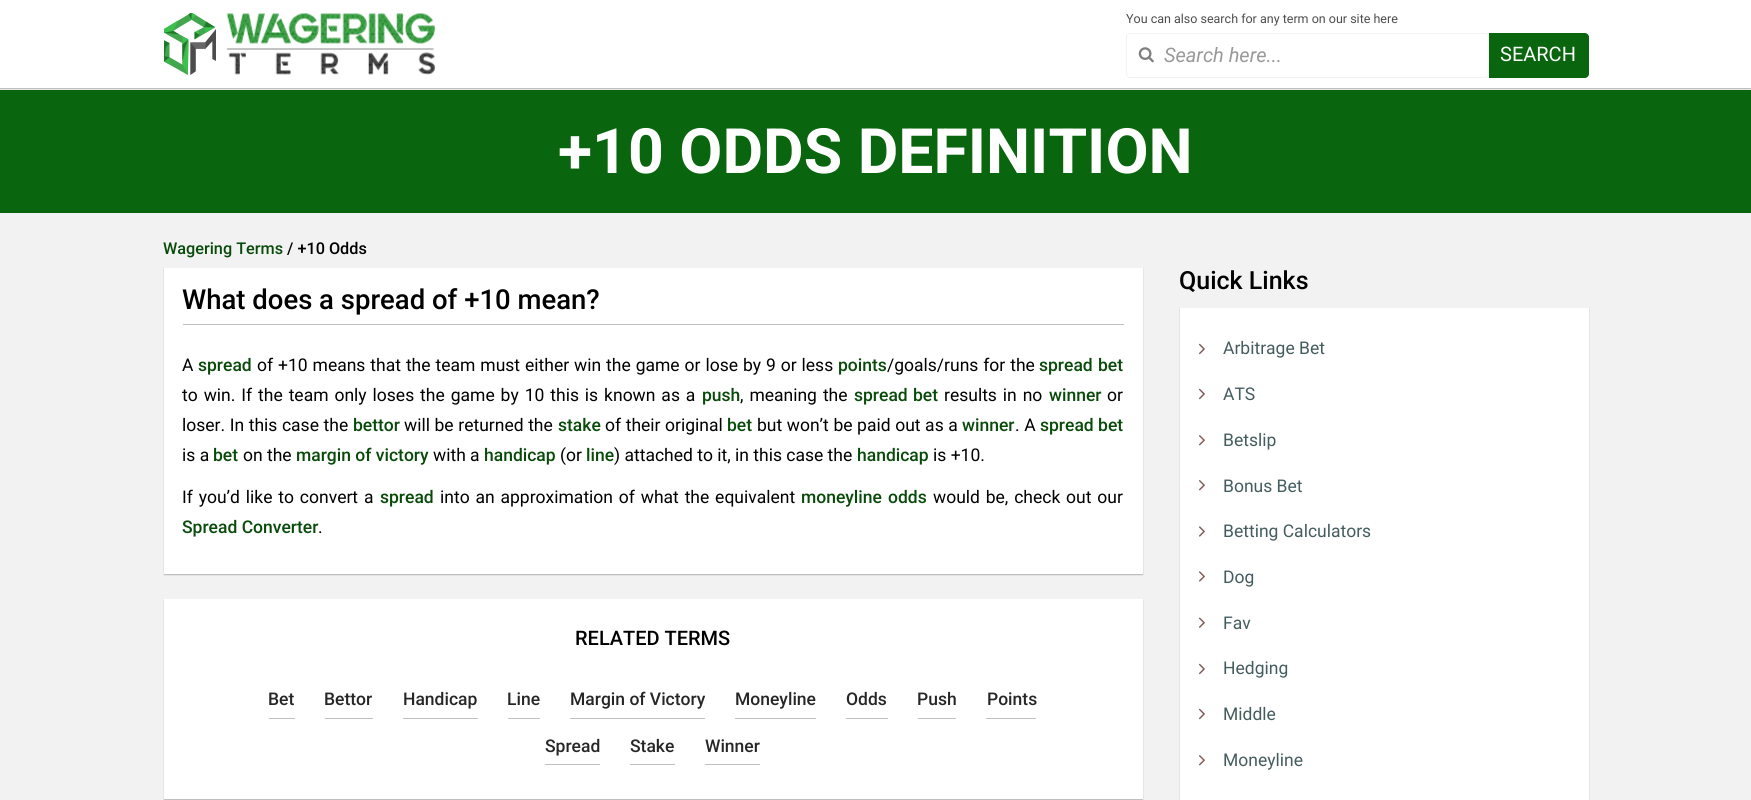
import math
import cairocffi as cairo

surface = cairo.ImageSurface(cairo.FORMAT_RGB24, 1751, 800)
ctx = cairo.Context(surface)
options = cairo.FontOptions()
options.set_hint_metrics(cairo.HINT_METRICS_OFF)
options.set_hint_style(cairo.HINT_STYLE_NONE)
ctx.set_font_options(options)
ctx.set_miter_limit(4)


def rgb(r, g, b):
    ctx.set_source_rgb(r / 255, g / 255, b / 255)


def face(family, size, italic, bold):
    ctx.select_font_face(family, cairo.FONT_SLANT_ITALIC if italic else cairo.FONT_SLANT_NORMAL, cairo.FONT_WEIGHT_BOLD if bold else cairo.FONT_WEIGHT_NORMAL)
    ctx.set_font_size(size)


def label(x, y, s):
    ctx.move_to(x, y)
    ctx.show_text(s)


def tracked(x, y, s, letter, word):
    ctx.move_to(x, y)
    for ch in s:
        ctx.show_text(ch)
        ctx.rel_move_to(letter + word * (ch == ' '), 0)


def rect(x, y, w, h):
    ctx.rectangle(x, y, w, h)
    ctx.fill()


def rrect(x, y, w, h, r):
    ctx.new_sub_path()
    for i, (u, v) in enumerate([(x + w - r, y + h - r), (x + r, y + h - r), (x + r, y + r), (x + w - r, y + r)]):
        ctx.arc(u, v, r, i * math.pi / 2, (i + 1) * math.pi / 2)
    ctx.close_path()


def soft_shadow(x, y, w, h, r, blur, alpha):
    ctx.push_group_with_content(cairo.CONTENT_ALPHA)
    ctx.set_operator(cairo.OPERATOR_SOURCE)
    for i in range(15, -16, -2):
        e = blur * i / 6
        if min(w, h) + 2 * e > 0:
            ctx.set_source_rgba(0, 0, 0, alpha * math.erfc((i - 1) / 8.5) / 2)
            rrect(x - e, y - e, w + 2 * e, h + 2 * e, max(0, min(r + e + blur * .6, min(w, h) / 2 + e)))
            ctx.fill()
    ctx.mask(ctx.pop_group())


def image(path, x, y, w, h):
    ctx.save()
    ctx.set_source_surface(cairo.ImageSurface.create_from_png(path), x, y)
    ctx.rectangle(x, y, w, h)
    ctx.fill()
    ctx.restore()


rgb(242, 242, 242)
ctx.paint()
rgb(10, 102, 14)
rect(0, 90, 1751, 123)
rgb(0, 0, 0)
soft_shadow(0, 1, 1751, 88, 0, 0.5, 0.24)
rgb(255, 255, 255)
rect(0, 0, 1751, 88)
image('image0.png', 164, 13, 52, 62)
image('image1.png', 226, 13, 209, 62)
face('Roboto', 12.5, 0, 0)
rgb(77, 77, 77)
label(1126, 23, 'You can also search for any term on our site here')
rrect(1126.5, 33.5, 362, 44, 3.5)
rgb(242, 242, 242)
ctx.set_line_width(1)
ctx.stroke()
image('image2.png', 1138, 47, 16, 16)
face('Roboto', 20, 1, 0)
rgb(153, 153, 153)
label(1164, 62, 'Search here...')
rgb(10, 102, 14)
ctx.new_path()
ctx.move_to(1489, 33)
ctx.line_to(1585, 33)
ctx.curve_to(1587, 33, 1589, 35, 1589, 37)
ctx.line_to(1589, 74)
ctx.curve_to(1589, 76, 1587, 78, 1585, 78)
ctx.line_to(1489, 78)
ctx.close_path()
ctx.fill()
face('Roboto', 20, 0, 0)
rgb(255, 255, 255)
label(1500, 61, 'SEARCH')
face('Roboto', 62.5, 0, 1)
label(558, 173, '+10 ODDS DEFINITION')
face('Roboto Medium', 16.25, 0, 0)
rgb(8, 74, 9)
label(163, 254, 'Wagering Terms')
rgb(0, 0, 0)
label(287, 254, '/ +10 Odds')
rgb(0, 0, 0)
soft_shadow(164, 269, 979, 306, 0, 0.5, 0.24)
rgb(255, 255, 255)
rect(164, 268, 979, 306)
rgb(193, 191, 191)
rect(183, 324, 941, 1)
face('Roboto Medium', 27.5, 0, 0)
rgb(0, 0, 0)
label(182, 309, 'What does a spread of +10 mean?')
face('Roboto', 17.5, 0, 0)
label(182, 371, 'A')
face('Roboto Medium', 17.5, 0, 0)
rgb(8, 74, 9)
label(198, 371, 'spread')
face('Roboto', 17.5, 0, 0)
rgb(0, 0, 0)
tracked(257, 371, 'of +10 means that the team must either win the game or lose by 9 or less', 0, 0.6)
face('Roboto Medium', 17.5, 0, 0)
rgb(8, 74, 9)
label(838, 371, 'points')
face('Roboto', 17.5, 0, 0)
rgb(0, 0, 0)
tracked(887, 371, '/goals/runs for the', 0, 0.6)
face('Roboto Medium', 17.5, 0, 0)
rgb(8, 74, 9)
label(1039, 371, 'spread')
label(1098, 371, 'bet')
face('Roboto', 17.5, 0, 0)
rgb(0, 0, 0)
tracked(182, 401, 'to win. If the team only loses the game by 10 this is known as a', 0, 1.6)
face('Roboto Medium', 17.5, 0, 0)
rgb(8, 74, 9)
label(702, 401, 'push')
face('Roboto', 17.5, 0, 0)
rgb(0, 0, 0)
tracked(740, 401, ', meaning the', 0, 1.6)
face('Roboto Medium', 17.5, 0, 0)
rgb(8, 74, 9)
label(854, 401, 'spread')
label(913, 401, 'bet')
face('Roboto', 17.5, 0, 0)
rgb(0, 0, 0)
tracked(944, 401, 'results in no', 0, 1.6)
face('Roboto Medium', 17.5, 0, 0)
rgb(8, 74, 9)
label(1049, 401, 'winner')
face('Roboto', 17.5, 0, 0)
rgb(0, 0, 0)
label(1107, 401, 'or')
tracked(182, 431, 'loser. In this case the', 0, 0.25)
face('Roboto Medium', 17.5, 0, 0)
rgb(8, 74, 9)
label(353, 431, 'bettor')
face('Roboto', 17.5, 0, 0)
rgb(0, 0, 0)
tracked(404, 431, 'will be returned the', 0, 0.25)
face('Roboto Medium', 17.5, 0, 0)
rgb(8, 74, 9)
label(558, 431, 'stake')
face('Roboto', 17.5, 0, 0)
rgb(0, 0, 0)
tracked(605, 431, 'of their original', 0, 0.25)
face('Roboto Medium', 17.5, 0, 0)
rgb(8, 74, 9)
label(727, 431, 'bet')
face('Roboto', 17.5, 0, 0)
rgb(0, 0, 0)
tracked(757, 431, 'but won’t be paid out as a', 0, 0.25)
face('Roboto Medium', 17.5, 0, 0)
rgb(8, 74, 9)
label(962, 431, 'winner')
face('Roboto', 17.5, 0, 0)
rgb(0, 0, 0)
tracked(1015, 431, '. A', 0, 0.25)
face('Roboto Medium', 17.5, 0, 0)
rgb(8, 74, 9)
label(1040, 431, 'spread bet')
face('Roboto', 17.5, 0, 0)
rgb(0, 0, 0)
label(182, 461, 'is a')
face('Roboto Medium', 17.5, 0, 0)
rgb(8, 74, 9)
label(213, 461, 'bet')
face('Roboto', 17.5, 0, 0)
rgb(0, 0, 0)
label(243, 461, 'on the')
face('Roboto Medium', 17.5, 0, 0)
rgb(8, 74, 9)
label(296, 461, 'margin of victory')
face('Roboto', 17.5, 0, 0)
rgb(0, 0, 0)
label(433, 461, 'with a')
face('Roboto Medium', 17.5, 0, 0)
rgb(8, 74, 9)
label(484, 461, 'handicap')
face('Roboto', 17.5, 0, 0)
rgb(0, 0, 0)
label(560, 461, '(or')
face('Roboto Medium', 17.5, 0, 0)
rgb(8, 74, 9)
label(586, 461, 'line')
face('Roboto', 17.5, 0, 0)
rgb(0, 0, 0)
label(614, 461, ') attached to it, in this case the')
face('Roboto Medium', 17.5, 0, 0)
rgb(8, 74, 9)
label(857, 461, 'handicap')
face('Roboto', 17.5, 0, 0)
rgb(0, 0, 0)
label(933, 461, 'is +10.')
tracked(182, 503, 'If you’d like to convert a', 0, 1.5)
face('Roboto Medium', 17.5, 0, 0)
rgb(8, 74, 9)
label(380, 503, 'spread')
face('Roboto', 17.5, 0, 0)
rgb(0, 0, 0)
tracked(440, 503, 'into an approximation of what the equivalent', 0, 1.5)
face('Roboto Medium', 17.5, 0, 0)
rgb(8, 74, 9)
label(801, 503, 'moneyline')
label(888, 503, 'odds')
face('Roboto', 17.5, 0, 0)
rgb(0, 0, 0)
tracked(933, 503, 'would be, check out our', 0, 1.5)
face('Roboto Medium', 17.5, 0, 0)
rgb(8, 74, 9)
label(182, 533, 'Spread Converter')
face('Roboto', 17.5, 0, 0)
rgb(0, 0, 0)
label(318, 533, '.')
rgb(0, 0, 0)
soft_shadow(164, 600, 979, 200, 0, 0.5, 0.24)
rgb(255, 255, 255)
rect(164, 599, 979, 200)
face('Roboto Medium', 20, 0, 0)
rgb(0, 0, 0)
label(575, 645, 'RELATED TERMS')
face('Roboto Medium', 17.5, 0, 0)
rgb(38, 38, 38)
label(268, 705, 'Bet')
rgb(193, 191, 191)
rect(269, 718, 26, 1)
rgb(38, 38, 38)
label(324, 705, 'Bettor')
rgb(193, 191, 191)
rect(325, 718, 48, 1)
rgb(38, 38, 38)
label(403, 705, 'Handicap')
rgb(193, 191, 191)
rect(403, 718, 75, 1)
rgb(38, 38, 38)
label(507, 705, 'Line')
rgb(193, 191, 191)
rect(508, 718, 32, 1)
rgb(38, 38, 38)
label(570, 705, 'Margin of Victory')
rgb(193, 191, 191)
rect(570, 718, 135, 1)
rgb(38, 38, 38)
label(735, 705, 'Moneyline')
rgb(193, 191, 191)
rect(735, 718, 81, 1)
rgb(38, 38, 38)
label(846, 705, 'Odds')
rgb(193, 191, 191)
rect(846, 718, 42, 1)
rgb(38, 38, 38)
label(917, 705, 'Push')
rgb(193, 191, 191)
rect(918, 718, 38, 1)
rgb(38, 38, 38)
label(987, 705, 'Points')
rgb(193, 191, 191)
rect(986, 718, 50, 1)
rgb(38, 38, 38)
label(545, 752, 'Spread')
rgb(193, 191, 191)
rect(545, 764, 55, 1)
rgb(38, 38, 38)
label(630, 752, 'Stake')
rgb(193, 191, 191)
rect(630, 764, 45, 1)
rgb(38, 38, 38)
label(705, 752, 'Winner')
rgb(193, 191, 191)
rect(705, 764, 55, 1)
face('Roboto Medium', 25, 0, 0)
rgb(0, 0, 0)
label(1179, 289, 'Quick Links')
rgb(0, 0, 0)
soft_shadow(1180, 309, 409, 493, 0, 0.5, 0.24)
rgb(255, 255, 255)
rect(1180, 308, 409, 492)
image('image3.png', 1199, 343, 6, 12)
face('Roboto', 17.5, 0, 0)
rgb(69, 92, 95)
label(1223, 354, 'Arbitrage Bet')
image('image3.png', 1199, 388, 6, 12)
label(1223, 400, 'ATS')
image('image4.png', 1199, 435, 6, 11)
label(1223, 446, 'Betslip')
image('image4.png', 1199, 480, 6, 11)
label(1223, 492, 'Bonus Bet')
image('image5.png', 1199, 526, 6, 11)
label(1223, 537, 'Betting Calculators')
image('image5.png', 1199, 571, 6, 11)
label(1223, 583, 'Dog')
image('image6.png', 1198, 617, 7, 11)
label(1223, 629, 'Fav')
image('image3.png', 1199, 663, 6, 12)
label(1223, 674, 'Hedging')
image('image3.png', 1199, 708, 6, 12)
label(1223, 720, 'Middle')
image('image4.png', 1199, 755, 6, 11)
label(1223, 766, 'Moneyline')
surface.write_to_png('render.png')
